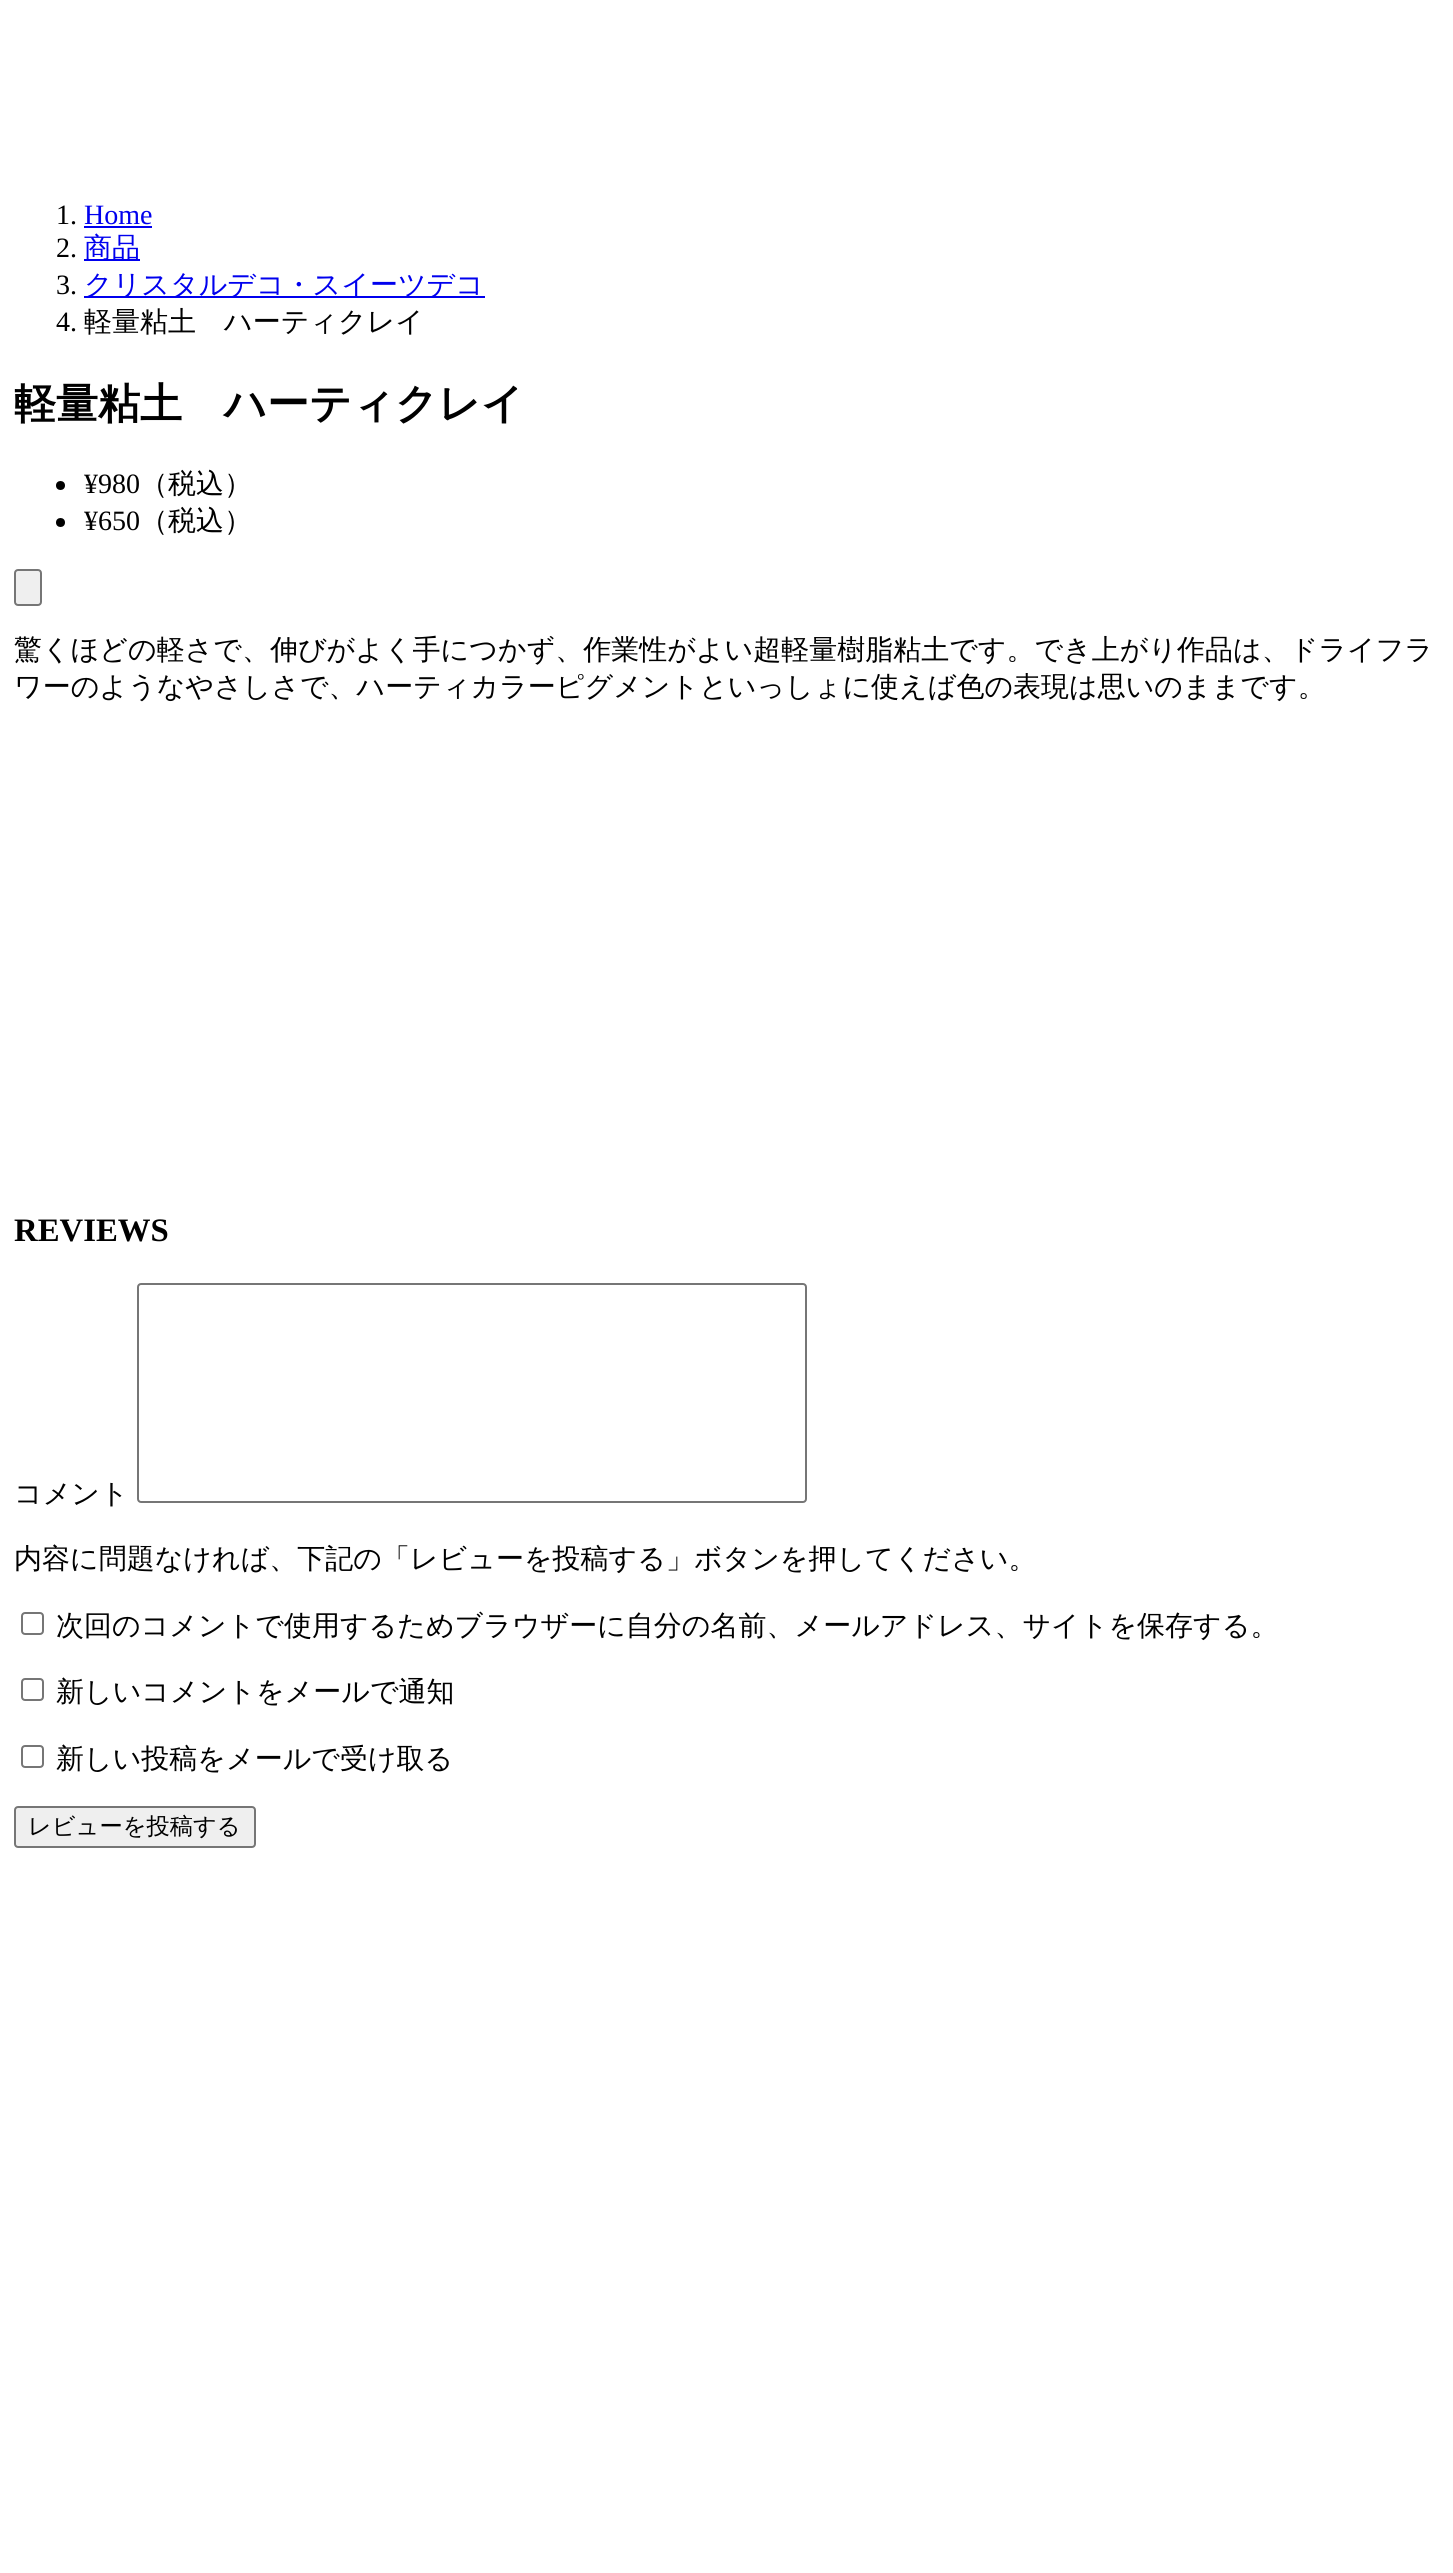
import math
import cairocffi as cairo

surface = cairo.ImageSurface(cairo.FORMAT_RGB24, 1453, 2573)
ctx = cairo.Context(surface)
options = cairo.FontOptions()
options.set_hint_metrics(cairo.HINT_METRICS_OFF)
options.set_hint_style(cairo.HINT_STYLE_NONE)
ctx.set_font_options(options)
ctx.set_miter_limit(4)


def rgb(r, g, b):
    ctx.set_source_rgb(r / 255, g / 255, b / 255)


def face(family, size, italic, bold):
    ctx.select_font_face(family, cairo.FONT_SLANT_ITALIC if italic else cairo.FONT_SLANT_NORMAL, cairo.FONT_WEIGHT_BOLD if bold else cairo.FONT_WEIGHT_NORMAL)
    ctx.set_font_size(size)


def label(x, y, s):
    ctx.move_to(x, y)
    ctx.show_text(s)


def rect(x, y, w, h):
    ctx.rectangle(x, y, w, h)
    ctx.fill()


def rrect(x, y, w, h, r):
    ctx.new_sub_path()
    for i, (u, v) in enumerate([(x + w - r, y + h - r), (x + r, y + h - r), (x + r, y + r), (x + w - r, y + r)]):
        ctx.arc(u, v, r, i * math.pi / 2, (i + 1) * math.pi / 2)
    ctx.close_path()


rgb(255, 255, 255)
ctx.paint()
face('Liberation Serif', 28, 0, 0)
rgb(0, 0, 0)
label(56, 224, '1.')
rgb(0, 0, 238)
label(84, 224, 'Home')
rect(84, 226, 68, 2)
rgb(0, 0, 0)
label(56, 257, '2.')
rgb(0, 0, 238)
rect(84, 259, 56, 2)
face('WenQuanYi Zen Hei Medium', 28, 0, 0)
label(84, 257, '商品')
face('Liberation Serif', 28, 0, 0)
rgb(0, 0, 0)
label(56, 294, '3.')
rgb(0, 0, 238)
rect(84, 296, 401, 2)
face('WenQuanYi Zen Hei Medium', 28, 0, 0)
label(84, 294, 'クリスタルデコ・スイーツデコ')
face('Liberation Serif', 28, 0, 0)
rgb(0, 0, 0)
label(56, 331, '4.')
face('WenQuanYi Zen Hei Medium', 28, 0, 0)
label(84, 331, '軽量粘土　ハーティクレイ')
face('WenQuanYi Zen Hei', 42, 0, 1)
label(14, 418, '軽量粘土　ハーティクレイ')
ctx.new_path()
ctx.arc(60.5, 485.5, 4.5, 0, 2 * math.pi)
ctx.fill()
face('Liberation Serif', 28, 0, 0)
label(84, 493, '¥980')
face('WenQuanYi Zen Hei Medium', 28, 0, 0)
label(140, 493, '（税込）')
ctx.new_path()
ctx.arc(60.5, 522.5, 4.5, 0, 2 * math.pi)
ctx.fill()
face('Liberation Serif', 28, 0, 0)
label(84, 530, '¥650')
face('WenQuanYi Zen Hei Medium', 28, 0, 0)
label(140, 530, '（税込）')
rgb(239, 239, 239)
rrect(15, 570, 26, 35, 3)
ctx.fill_preserve()
rgb(118, 118, 118)
ctx.stroke()
rgb(0, 0, 0)
label(14, 659, '驚くほどの軽さで、伸びがよく手につかず、作業性がよい超軽量樹脂粘土です。でき上がり作品は、ドライフラ')
label(14, 696, 'ワーのようなやさしさで、ハーティカラーピグメントといっしょに使えば色の表現は思いのままです。')
face('Liberation Serif', 32.75, 0, 1)
label(14, 1241, 'REVIEWS')
face('WenQuanYi Zen Hei Medium', 28, 0, 0)
label(14, 1503, 'コメント')
rrect(138, 1284, 668, 218, 3)
rgb(118, 118, 118)
ctx.stroke()
rgb(0, 0, 0)
label(14, 1568, '内容に問題なければ、下記の「レビューを投稿する」ボタンを押してください。')
rrect(22, 1613, 21, 21, 3)
rgb(118, 118, 118)
ctx.stroke()
rgb(0, 0, 0)
label(56, 1635, '次回のコメントで使用するためブラウザーに自分の名前、メールアドレス、サイトを保存する。')
rrect(22, 1679, 21, 21, 3)
rgb(118, 118, 118)
ctx.stroke()
rgb(0, 0, 0)
label(56, 1701, '新しいコメントをメールで通知')
rrect(22, 1746, 21, 21, 3)
rgb(118, 118, 118)
ctx.stroke()
rgb(0, 0, 0)
label(56, 1768, '新しい投稿をメールで受け取る')
rgb(239, 239, 239)
rrect(15, 1807, 240, 40, 3)
ctx.fill_preserve()
rgb(118, 118, 118)
ctx.stroke()
face('WenQuanYi Zen Hei Medium', 23.25, 0, 0)
rgb(0, 0, 0)
label(28, 1834, 'レビューを投稿する')
surface.write_to_png('render.png')
